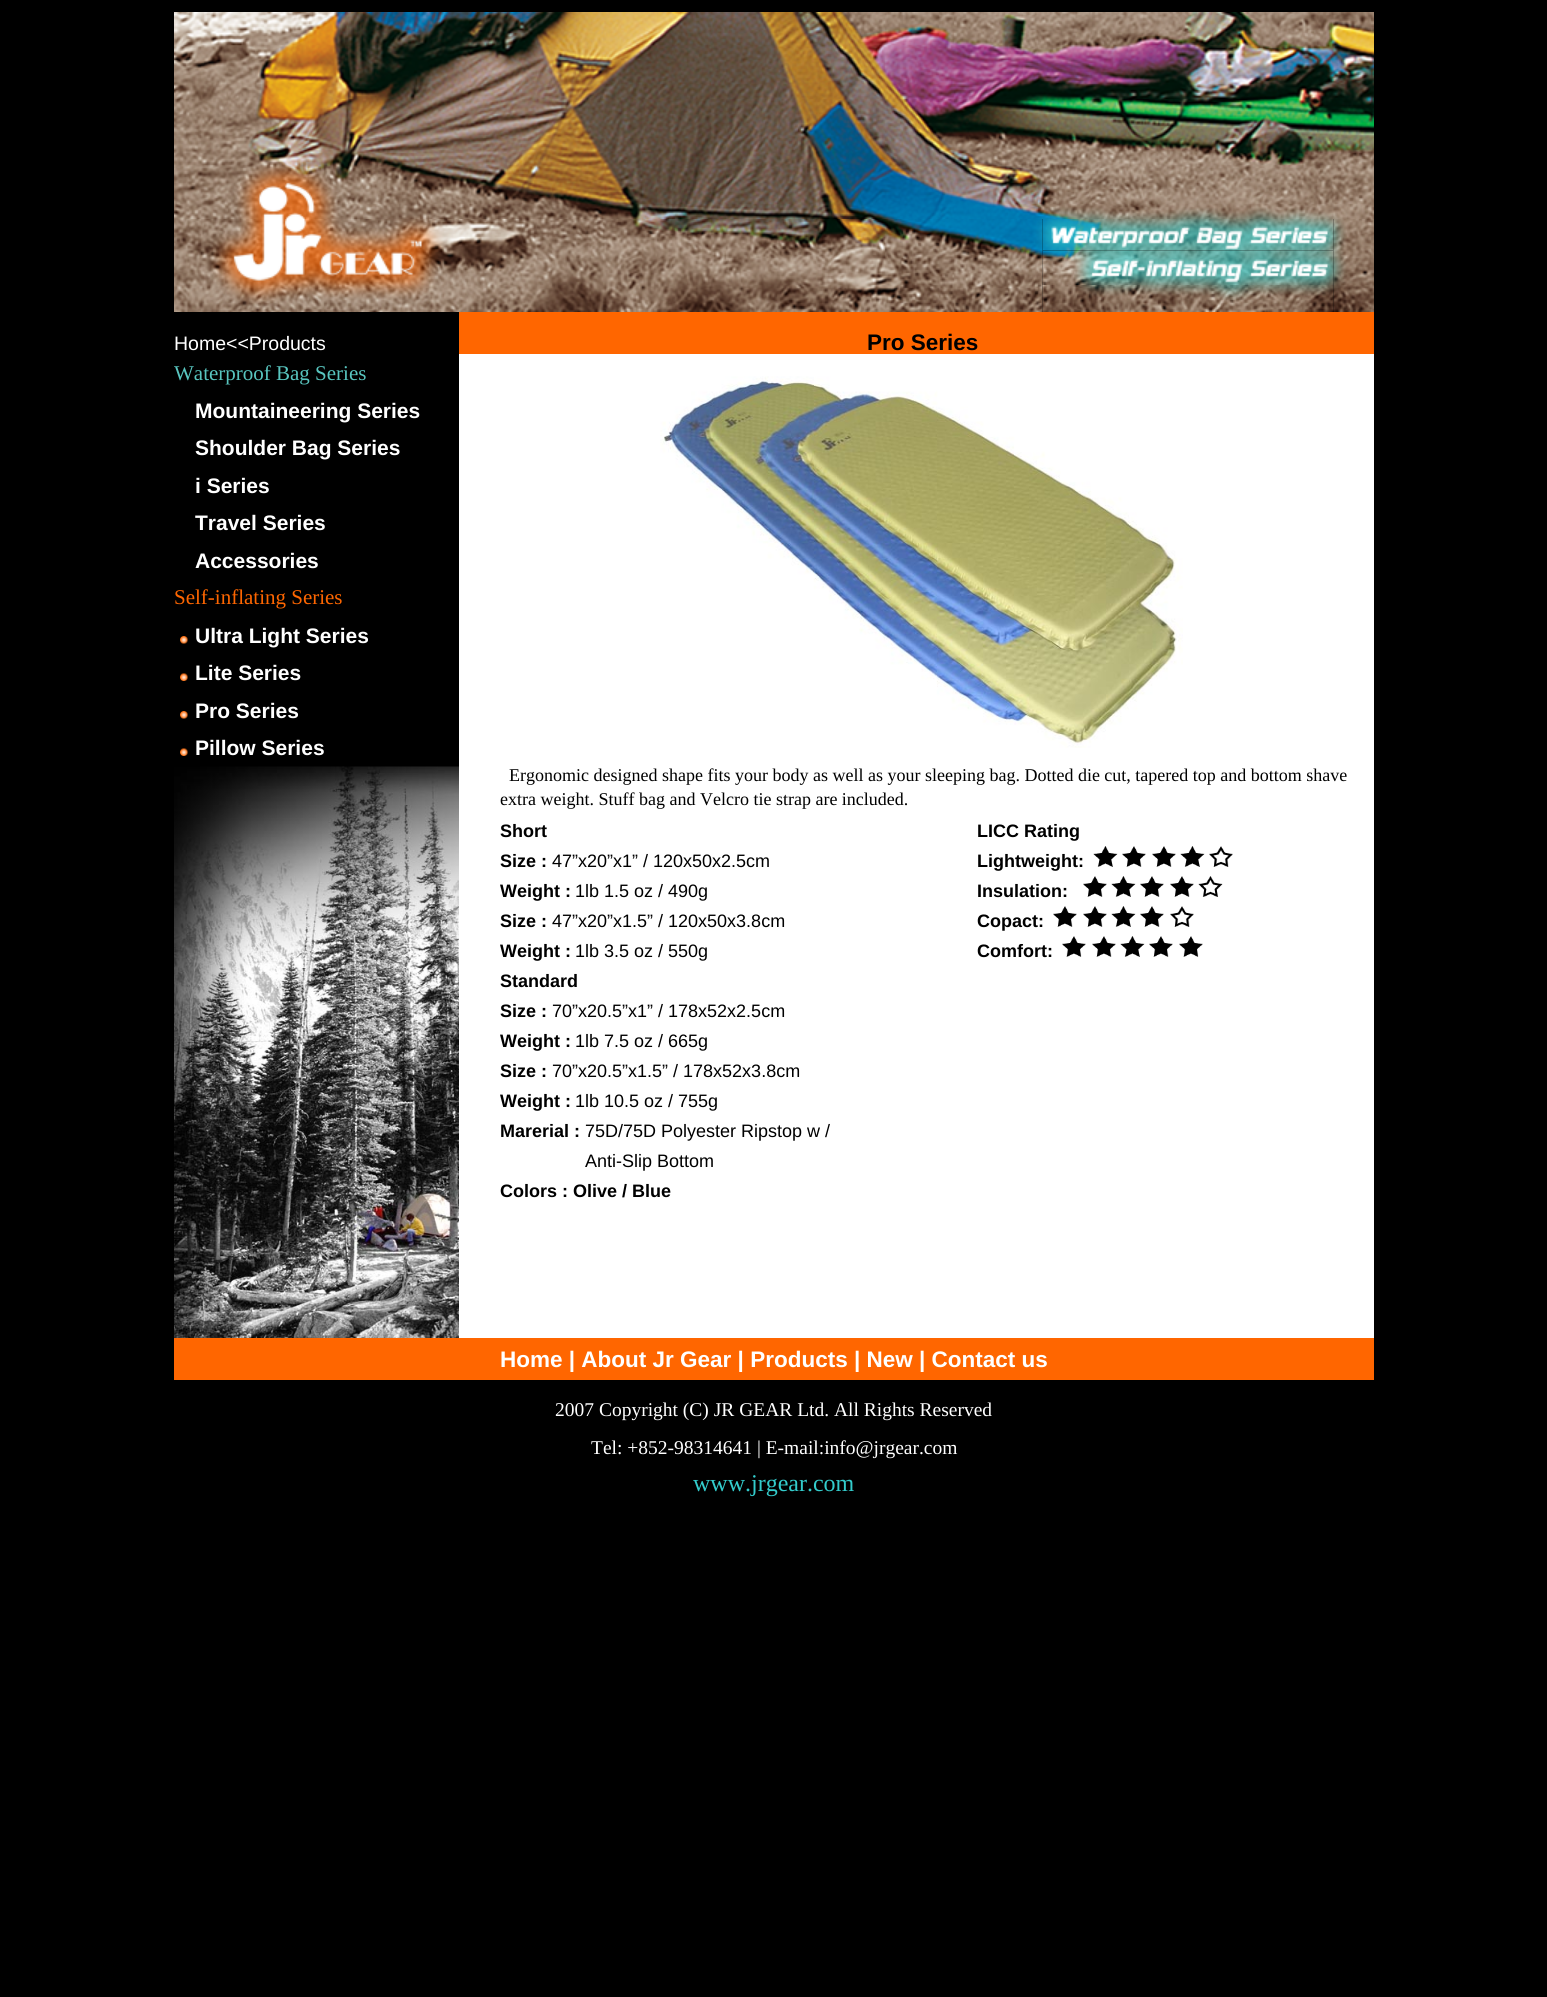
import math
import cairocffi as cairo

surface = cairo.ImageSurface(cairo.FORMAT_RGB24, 1547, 1997)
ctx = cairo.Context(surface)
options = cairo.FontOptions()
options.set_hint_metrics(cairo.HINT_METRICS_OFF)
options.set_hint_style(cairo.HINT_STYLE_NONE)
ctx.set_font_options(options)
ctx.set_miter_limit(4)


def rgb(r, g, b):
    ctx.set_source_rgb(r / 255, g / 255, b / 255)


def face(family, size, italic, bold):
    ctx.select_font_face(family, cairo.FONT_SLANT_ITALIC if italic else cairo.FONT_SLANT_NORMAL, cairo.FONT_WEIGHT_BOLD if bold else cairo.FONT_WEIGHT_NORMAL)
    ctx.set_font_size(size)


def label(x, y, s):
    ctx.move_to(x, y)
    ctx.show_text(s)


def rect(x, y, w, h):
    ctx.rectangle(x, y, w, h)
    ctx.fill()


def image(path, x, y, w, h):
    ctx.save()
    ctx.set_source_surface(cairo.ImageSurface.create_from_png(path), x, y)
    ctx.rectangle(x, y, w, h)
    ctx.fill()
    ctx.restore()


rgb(0, 0, 0)
ctx.paint()
image('image0.png', 174, 12, 1200, 207)
image('image1.png', 174, 219, 869, 93)
image('image2.png', 1042, 219, 292, 32)
image('image3.png', 1333, 219, 41, 93)
image('image4.png', 1042, 250, 292, 35)
image('image5.png', 1042, 285, 292, 27)
rgb(255, 255, 255)
rect(459, 354, 915, 984)
face('Liberation Sans', 19.5, 0, 0)
label(174, 350, 'Home<<Products')
face('Liberation Serif', 21, 0, 0)
rgb(88, 197, 191)
label(174, 380, 'Waterproof Bag Series')
face('Liberation Sans', 21, 0, 1)
rgb(255, 255, 255)
label(195, 418, 'Mountaineering Series')
label(195, 455, 'Shoulder Bag Series')
label(195, 493, 'i Series')
label(195, 530, 'Travel Series')
label(195, 568, 'Accessories')
face('Liberation Serif', 21, 0, 0)
rgb(255, 102, 0)
label(174, 604, 'Self-inflating Series')
image('image6.png', 180, 636, 8, 8)
face('Liberation Sans', 21, 0, 1)
rgb(255, 255, 255)
label(195, 643, 'Ultra Light Series')
image('image7.png', 180, 673, 8, 8)
label(195, 680, 'Lite Series')
image('image6.png', 180, 711, 8, 8)
label(195, 718, 'Pro Series')
image('image7.png', 180, 748, 8, 8)
label(195, 755, 'Pillow Series')
image('image8.png', 174, 766, 285, 572)
rgb(255, 102, 0)
rect(459, 312, 915, 42)
face('Liberation Sans', 22.5, 0, 1)
rgb(0, 0, 0)
label(867, 350, 'Pro Series')
image('image9.png', 660, 376, 523, 372)
face('Liberation Serif', 18, 0, 0)
label(509, 781, 'Ergonomic designed shape fits your body as well as your sleeping bag. Dotted die cut, tapered top and bottom shave')
label(500, 805, 'extra weight. Stuff bag and Velcro tie strap are included.')
face('Liberation Sans', 18, 0, 1)
label(500, 837, 'Short')
label(500, 867, 'Size :')
face('Liberation Sans', 18, 0, 0)
label(552, 867, '47”x20”x1” / 120x50x2.5cm')
face('Liberation Sans', 18, 0, 1)
label(500, 897, 'Weight :')
face('Liberation Sans', 18, 0, 0)
label(575, 897, '1lb 1.5 oz / 490g')
face('Liberation Sans', 18, 0, 1)
label(500, 927, 'Size :')
face('Liberation Sans', 18, 0, 0)
label(552, 927, '47”x20”x1.5” / 120x50x3.8cm')
face('Liberation Sans', 18, 0, 1)
label(500, 957, 'Weight :')
face('Liberation Sans', 18, 0, 0)
label(575, 957, '1lb 3.5 oz / 550g')
face('Liberation Sans', 18, 0, 1)
label(500, 987, 'Standard')
label(500, 1017, 'Size :')
face('Liberation Sans', 18, 0, 0)
label(552, 1017, '70”x20.5”x1” / 178x52x2.5cm')
face('Liberation Sans', 18, 0, 1)
label(500, 1047, 'Weight :')
face('Liberation Sans', 18, 0, 0)
label(575, 1047, '1lb 7.5 oz / 665g')
face('Liberation Sans', 18, 0, 1)
label(500, 1077, 'Size :')
face('Liberation Sans', 18, 0, 0)
label(552, 1077, '70”x20.5”x1.5” / 178x52x3.8cm')
face('Liberation Sans', 18, 0, 1)
label(500, 1107, 'Weight :')
face('Liberation Sans', 18, 0, 0)
label(575, 1107, '1lb 10.5 oz / 755g')
face('Liberation Sans', 18, 0, 1)
label(500, 1137, 'Marerial :')
face('Liberation Sans', 18, 0, 0)
label(585, 1137, '75D/75D Polyester Ripstop w /')
label(585, 1167, 'Anti-Slip Bottom')
face('Liberation Sans', 18, 0, 1)
label(500, 1197, 'Colors : Olive / Blue')
label(977, 837, 'LICC Rating')
label(977, 867, 'Lightweight:')
image('image10.png', 1093, 846, 25, 21)
image('image11.png', 1122, 846, 24, 21)
image('image11.png', 1152, 846, 24, 21)
image('image10.png', 1180, 846, 25, 21)
image('image12.png', 1209, 846, 24, 21)
label(977, 897, 'Insulation:')
image('image11.png', 1083, 876, 24, 21)
image('image13.png', 1111, 876, 25, 21)
image('image11.png', 1140, 876, 24, 21)
image('image11.png', 1170, 876, 24, 21)
image('image14.png', 1198, 876, 25, 21)
label(977, 927, 'Copact:')
image('image11.png', 1053, 906, 24, 21)
image('image11.png', 1083, 906, 24, 21)
image('image13.png', 1111, 906, 25, 21)
image('image11.png', 1140, 906, 24, 21)
image('image12.png', 1170, 906, 24, 21)
label(977, 957, 'Comfort:')
image('image15.png', 1062, 936, 24, 21)
image('image11.png', 1092, 936, 24, 21)
image('image13.png', 1120, 936, 25, 21)
image('image11.png', 1149, 936, 24, 21)
image('image15.png', 1179, 936, 24, 21)
rgb(255, 102, 0)
rect(174, 1338, 1200, 42)
face('Liberation Sans', 22.5, 0, 1)
rgb(255, 255, 255)
label(500, 1367, 'Home | About Jr Gear | Products | New | Contact us')
face('Liberation Serif', 19.5, 0, 0)
label(555, 1416, '2007 Copyright (C) JR GEAR Ltd. All Rights Reserved')
label(591, 1454, 'Tel: +852-98314641 | E-mail:info@jrgear.com')
face('Liberation Serif', 24, 0, 0)
rgb(51, 204, 204)
label(693, 1491, 'www.jrgear.com')
surface.write_to_png('render.png')
